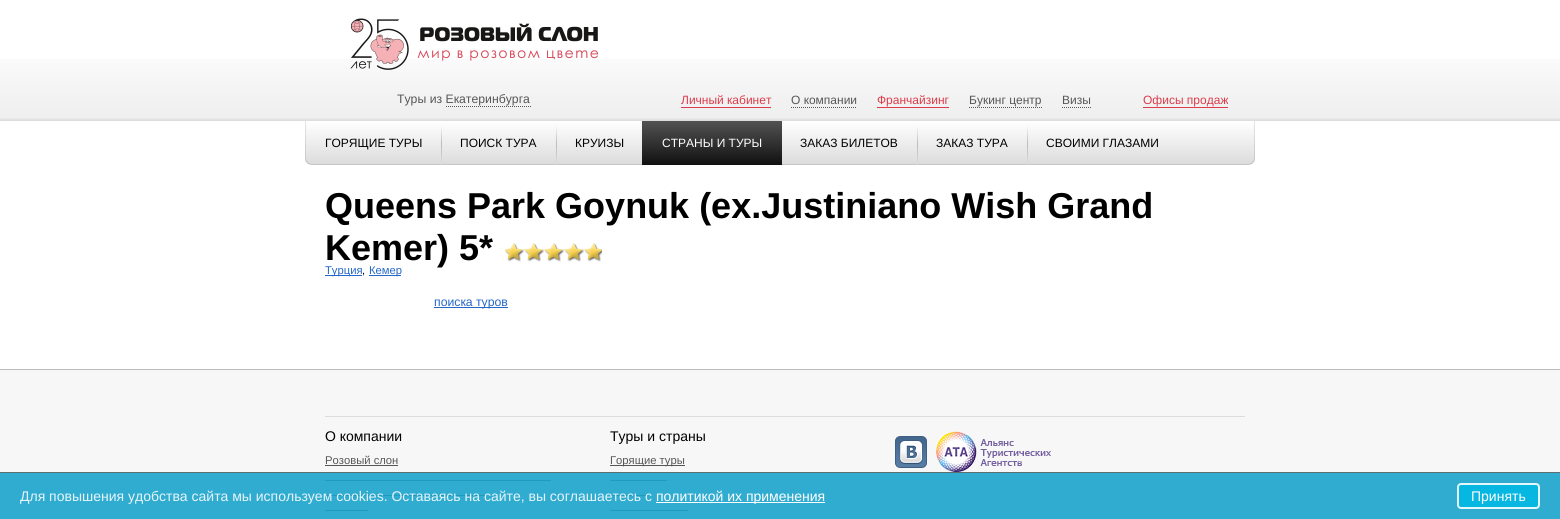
import math
import cairocffi as cairo

surface = cairo.ImageSurface(cairo.FORMAT_RGB24, 1560, 519)
ctx = cairo.Context(surface)
options = cairo.FontOptions()
options.set_hint_metrics(cairo.HINT_METRICS_OFF)
options.set_hint_style(cairo.HINT_STYLE_NONE)
ctx.set_font_options(options)
ctx.set_miter_limit(4)


def rgb(r, g, b):
    ctx.set_source_rgb(r / 255, g / 255, b / 255)


def face(family, size, italic, bold):
    ctx.select_font_face(family, cairo.FONT_SLANT_ITALIC if italic else cairo.FONT_SLANT_NORMAL, cairo.FONT_WEIGHT_BOLD if bold else cairo.FONT_WEIGHT_NORMAL)
    ctx.set_font_size(size)


def label(x, y, s):
    ctx.move_to(x, y)
    ctx.show_text(s)


def rect(x, y, w, h):
    ctx.rectangle(x, y, w, h)
    ctx.fill()


def rrect(x, y, w, h, r):
    ctx.new_sub_path()
    for i, (u, v) in enumerate([(x + w - r, y + h - r), (x + r, y + h - r), (x + r, y + r), (x + w - r, y + r)]):
        ctx.arc(u, v, r, i * math.pi / 2, (i + 1) * math.pi / 2)
    ctx.close_path()


def image(path, x, y, w, h):
    ctx.save()
    ctx.set_source_surface(cairo.ImageSurface.create_from_png(path), x, y)
    ctx.rectangle(x, y, w, h)
    ctx.fill()
    ctx.restore()


rgb(255, 255, 255)
ctx.paint()
image('image0.png', 0, 59, 1560, 62)
image('image1.png', 350, 18, 249, 52)
face('Liberation Sans', 12.25, 0, 0)
rgb(87, 87, 87)
label(397, 103, 'Туры из Екатеринбурга')
ctx.new_path()
ctx.move_to(446, 106.5)
ctx.line_to(531, 106.5)
ctx.set_line_width(1)
ctx.set_dash([1, 1])
ctx.stroke()
rgb(220, 60, 75)
rect(681, 107, 90, 1)
face('Liberation Sans', 12, 0, 0)
label(681, 104, 'Личный кабинет')
ctx.new_path()
ctx.move_to(791, 107.5)
ctx.line_to(857, 107.5)
rgb(87, 87, 87)
ctx.stroke()
label(791, 104, 'О компании')
rgb(220, 60, 75)
rect(877, 107, 72, 1)
label(877, 104, 'Франчайзинг')
ctx.new_path()
ctx.move_to(969, 107.5)
ctx.line_to(1042, 107.5)
rgb(87, 87, 87)
ctx.stroke()
label(969, 104, 'Букинг центр')
ctx.new_path()
ctx.move_to(1062, 107.5)
ctx.line_to(1091, 107.5)
ctx.stroke()
label(1062, 104, 'Визы')
rgb(220, 60, 75)
rect(1143, 107, 85, 1)
label(1143, 104, 'Офисы продаж')
ctx.save()
ctx.new_path()
ctx.move_to(305, 121)
ctx.line_to(1255, 121)
ctx.line_to(1255, 158)
ctx.curve_to(1255, 162, 1252, 165, 1248, 165)
ctx.line_to(312, 165)
ctx.curve_to(308, 165, 305, 162, 305, 158)
ctx.close_path()
ctx.clip()
gradient = cairo.LinearGradient(780, 121, 780, 164)
gradient.add_color_stop_rgba(0, 1, 1, 1, 1)
gradient.add_color_stop_rgba(1, 0.863, 0.863, 0.863, 1)
ctx.set_source(gradient)
rect(305, 121, 950, 43)
ctx.restore()
rgb(201, 201, 201)
ctx.new_path()
ctx.move_to(1255, 121)
ctx.line_to(1254, 121)
ctx.line_to(1254, 158)
ctx.curve_to(1254, 160, 1253, 161, 1252, 162)
ctx.line_to(1253, 163)
ctx.curve_to(1254, 162, 1255, 160, 1255, 158)
ctx.close_path()
ctx.fill()
rgb(197, 197, 197)
ctx.new_path()
ctx.move_to(312, 165)
ctx.line_to(1248, 165)
ctx.curve_to(1250, 165, 1252, 164, 1253, 163)
ctx.line_to(1252, 162)
ctx.curve_to(1251, 163, 1250, 164, 1248, 164)
ctx.line_to(312, 164)
ctx.curve_to(310, 164, 309, 163, 308, 162)
ctx.line_to(307, 163)
ctx.curve_to(308, 164, 310, 165, 312, 165)
ctx.close_path()
ctx.fill()
rgb(201, 201, 201)
ctx.new_path()
ctx.move_to(305, 121)
ctx.line_to(306, 121)
ctx.line_to(306, 158)
ctx.curve_to(306, 160, 307, 161, 308, 162)
ctx.line_to(307, 163)
ctx.curve_to(306, 162, 305, 160, 305, 158)
ctx.close_path()
ctx.fill()
gradient = cairo.LinearGradient(306, 121, 306, 159)
gradient.add_color_stop_rgba(0, 0.898, 0.898, 0.898, 1)
gradient.add_color_stop_rgba(1, 0.788, 0.788, 0.788, 1)
ctx.set_source(gradient)
rect(305, 121, 1, 38)
image('image2.png', 441, 126, 1, 39)
rgb(0, 0, 0)
label(325, 147, 'ГОРЯЩИЕ ТУРЫ')
image('image2.png', 556, 126, 1, 39)
label(460, 147, 'ПОИСК ТУРА')
label(575, 147, 'КРУИЗЫ')
gradient = cairo.LinearGradient(712, 121, 712, 165)
gradient.add_color_stop_rgba(0, 0.325, 0.325, 0.325, 1)
gradient.add_color_stop_rgba(1, 0.063, 0.063, 0.063, 1)
ctx.set_source(gradient)
rect(642, 121, 140, 44)
rgb(255, 255, 255)
label(662, 147, 'СТРАНЫ И ТУРЫ')
image('image2.png', 917, 126, 1, 39)
rgb(0, 0, 0)
label(800, 147, 'ЗАКАЗ БИЛЕТОВ')
image('image2.png', 1027, 126, 1, 39)
label(936, 147, 'ЗАКАЗ ТУРА')
label(1046, 147, 'СВОИМИ ГЛАЗАМИ')
gradient = cairo.LinearGradient(1255, 121, 1255, 159)
gradient.add_color_stop_rgba(0, 0.898, 0.898, 0.898, 1)
gradient.add_color_stop_rgba(1, 0.788, 0.788, 0.788, 1)
ctx.set_source(gradient)
rect(1254, 121, 1, 38)
face('Liberation Sans', 36, 0, 1)
rgb(0, 0, 0)
label(325, 218, 'Queens Park Goynuk (ex.Justiniano Wish Grand')
label(325, 260, 'Kemer) 5*')
image('image3.png', 505, 243, 97, 19)
rgb(36, 104, 200)
rect(325, 275, 37, 1)
face('Liberation Sans', 11.25, 0, 0)
label(325, 274, 'Турция')
rgb(0, 0, 0)
label(362, 274, ',')
rgb(36, 104, 200)
rect(369, 275, 32, 1)
label(369, 274, 'Кемер')
rect(434, 307, 74, 1)
face('Liberation Sans', 12.25, 0, 0)
label(434, 306, 'поиска туров')
rgb(247, 247, 247)
rect(0, 370, 1560, 137)
rgb(242, 242, 242)
rect(0, 507, 1560, 12)
rgb(187, 187, 187)
rect(0, 369, 1560, 1)
rgb(221, 221, 221)
rect(325, 416, 920, 1)
face('Liberation Sans', 14, 0, 0)
rgb(0, 0, 0)
label(325, 441, 'О компании')
face('Liberation Sans', 11.25, 0, 0)
rgb(87, 87, 87)
label(325, 464, 'Розовый слон')
rect(325, 465, 73, 1)
rect(325, 480, 226, 1)
rect(325, 495, 160, 1)
rect(325, 510, 43, 1)
face('Liberation Sans', 14, 0, 0)
rgb(0, 0, 0)
label(610, 441, 'Туры и страны')
rgb(87, 87, 87)
rect(610, 465, 75, 1)
face('Liberation Sans', 11.25, 0, 0)
label(610, 464, 'Горящие туры')
rect(610, 480, 57, 1)
rect(610, 495, 38, 1)
rect(610, 510, 78, 1)
image('image4.png', 895, 436, 32, 32)
image('image5.png', 936, 431, 115, 42)
ctx.set_source_rgba(0.094, 0.639, 0.8, 0.89)
rect(0, 472, 1560, 47)
ctx.set_source_rgba(0.4, 0.4, 0.4, 0.89)
rect(0, 472, 1560, 1)
face('Liberation Sans', 14, 0, 0)
rgb(231, 245, 250)
label(20, 501, 'Для повышения удобства сайта мы используем cookies. Оставаясь на сайте, вы соглашаетесь с')
rgb(254, 254, 254)
rect(656, 502, 169, 1)
rgb(255, 255, 255)
label(656, 501, 'политикой их применения')
rgb(6, 183, 226)
rrect(1457, 483, 83, 26, 4)
ctx.fill()
rrect(1458, 484, 81, 24, 3)
ctx.set_source_rgba(1, 1, 1, 0.89)
ctx.set_line_width(2)
ctx.set_dash([])
ctx.stroke()
rgb(255, 255, 255)
label(1471, 501, 'Принять')
surface.write_to_png('render.png')
